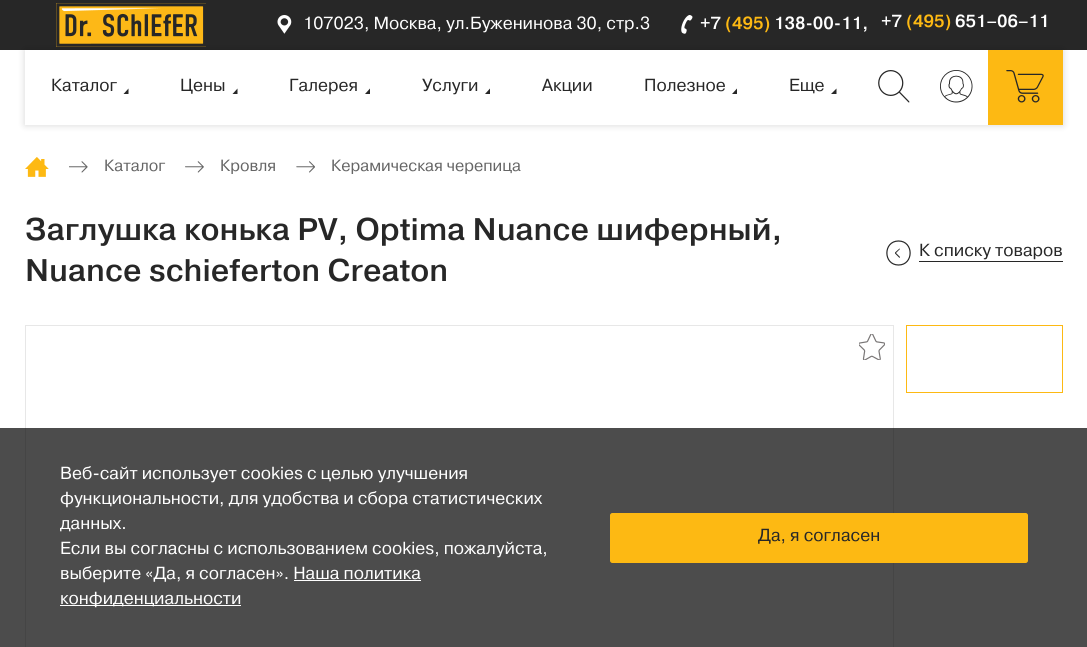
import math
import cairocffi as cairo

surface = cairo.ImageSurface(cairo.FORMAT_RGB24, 1087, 647)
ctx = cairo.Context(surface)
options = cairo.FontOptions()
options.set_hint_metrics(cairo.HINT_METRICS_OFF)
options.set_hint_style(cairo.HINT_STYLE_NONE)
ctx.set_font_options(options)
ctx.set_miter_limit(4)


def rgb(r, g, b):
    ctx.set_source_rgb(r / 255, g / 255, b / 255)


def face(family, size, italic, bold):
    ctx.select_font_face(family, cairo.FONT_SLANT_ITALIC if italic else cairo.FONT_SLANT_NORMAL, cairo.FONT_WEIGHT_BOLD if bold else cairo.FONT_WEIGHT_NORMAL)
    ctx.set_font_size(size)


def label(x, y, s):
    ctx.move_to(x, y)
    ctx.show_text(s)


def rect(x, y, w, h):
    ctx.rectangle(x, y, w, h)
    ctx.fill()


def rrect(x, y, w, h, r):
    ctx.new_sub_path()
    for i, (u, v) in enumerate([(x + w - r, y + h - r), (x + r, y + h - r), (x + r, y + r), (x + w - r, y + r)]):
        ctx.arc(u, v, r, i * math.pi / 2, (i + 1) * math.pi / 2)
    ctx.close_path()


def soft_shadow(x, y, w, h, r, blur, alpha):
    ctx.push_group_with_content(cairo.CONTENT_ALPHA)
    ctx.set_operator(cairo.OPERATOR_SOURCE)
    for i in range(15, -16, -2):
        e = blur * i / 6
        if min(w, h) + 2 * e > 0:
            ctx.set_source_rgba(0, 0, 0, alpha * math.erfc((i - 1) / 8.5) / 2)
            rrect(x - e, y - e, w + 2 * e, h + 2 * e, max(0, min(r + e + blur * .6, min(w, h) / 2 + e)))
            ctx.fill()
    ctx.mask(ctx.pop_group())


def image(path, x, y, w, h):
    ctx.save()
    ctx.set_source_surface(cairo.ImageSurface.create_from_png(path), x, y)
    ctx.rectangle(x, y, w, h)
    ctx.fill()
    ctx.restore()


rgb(255, 255, 255)
ctx.paint()
rgb(39, 39, 39)
rect(0, 0, 1087, 50)
image('image0.png', 277, 15, 15, 19)
face('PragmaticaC', 17.5, 0, 0)
rgb(255, 255, 255)
label(303, 29, '107023, Москва, ул.Буженинова 30, стр.3')
image('image1.png', 681, 15, 12, 19)
face('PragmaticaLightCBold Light', 17.5, 0, 0)
label(700, 29, '+7')
rgb(253, 185, 19)
label(725, 29, '(495)')
rgb(255, 255, 255)
label(774, 29, '138-00-11,')
label(881, 27, '+7')
rgb(253, 185, 19)
label(906, 27, '(495)')
rgb(255, 255, 255)
label(955, 27, '651–06–11')
rgb(0, 0, 0)
soft_shadow(25, 50, 1038, 75, 0, 4, 0.16)
rgb(255, 255, 255)
rect(25, 50, 963, 75)
image('image2.png', 56, 3, 150, 44)
face('PragmaticaC', 17.5, 0, 0)
rgb(39, 39, 39)
label(51, 91, 'Каталог')
ctx.new_path()
ctx.move_to(123.5, 94)
ctx.line_to(128.5, 88.5)
ctx.line_to(128.5, 94)
ctx.close_path()
ctx.fill()
label(180, 91, 'Цены')
ctx.new_path()
ctx.move_to(232.5, 94)
ctx.line_to(237.5, 88.5)
ctx.line_to(237.5, 94)
ctx.close_path()
ctx.fill()
label(289, 91, 'Галерея')
ctx.new_path()
ctx.move_to(365, 94)
ctx.line_to(370, 88.5)
ctx.line_to(370, 94)
ctx.close_path()
ctx.fill()
label(422, 91, 'Услуги')
ctx.new_path()
ctx.move_to(485, 94)
ctx.line_to(490, 88.5)
ctx.line_to(490, 94)
ctx.close_path()
ctx.fill()
label(542, 91, 'Акции')
label(644, 91, 'Полезное')
ctx.new_path()
ctx.move_to(732, 94)
ctx.line_to(737, 88.5)
ctx.line_to(737, 94)
ctx.close_path()
ctx.fill()
label(789, 91, 'Еще')
ctx.new_path()
ctx.move_to(831, 94)
ctx.line_to(836.5, 88.5)
ctx.line_to(836.5, 94)
ctx.close_path()
ctx.fill()
image('image3.png', 878, 70, 32, 33)
image('image4.png', 940, 70, 33, 33)
rgb(253, 185, 19)
rect(988, 50, 75, 75)
image('image5.png', 1006, 70, 38, 33)
image('image6.png', 25, 157, 24, 20)
image('image7.png', 69, 161, 19, 12)
face('PragmaticaC', 16.25, 0, 0)
rgb(102, 102, 102)
label(104, 171, 'Каталог')
image('image8.png', 185, 161, 19, 12)
label(220, 171, 'Кровля')
image('image9.png', 296, 161, 19, 12)
label(331, 171, 'Керамическая черепица')
face('PragmaticaLightCBold Light', 31.25, 0, 0)
rgb(39, 39, 39)
label(25, 240, 'Заглушка конька PV, Optima Nuance шиферный,')
label(25, 281, 'Nuance schieferton Creaton')
ctx.new_path()
ctx.move_to(898.5, 241)
ctx.curve_to(883, 241, 883, 265, 898.5, 265)
ctx.curve_to(914, 265, 914, 241, 898.5, 241)
ctx.close_path()
ctx.set_line_width(1.2)
ctx.stroke()
ctx.new_path()
ctx.move_to(900, 257)
ctx.line_to(895.5, 252.5)
ctx.line_to(895, 253.5)
ctx.line_to(899.5, 258)
ctx.close_path()
ctx.fill()
ctx.new_path()
ctx.move_to(899.5, 248.5)
ctx.line_to(895, 252.5)
ctx.line_to(895.5, 253.5)
ctx.line_to(900, 249)
ctx.close_path()
ctx.fill()
rect(919, 261, 144, 1)
face('PragmaticaC', 17.5, 0, 0)
label(919, 256, 'К списку товаров')
ctx.rectangle(25.5, 325.5, 868, 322)
rgb(231, 231, 231)
ctx.set_line_width(1)
ctx.stroke()
image('image10.png', 859, 334, 26, 26)
ctx.rectangle(906.5, 325.5, 156, 67)
rgb(253, 185, 19)
ctx.stroke()
ctx.set_source_rgba(0, 0, 0, 0.7)
rect(0, 428, 1087, 219)
rgb(255, 255, 255)
label(60, 479, 'Веб-сайт использует cookies с целью улучшения')
label(60, 504, 'функциональности, для удобства и сбора статистических')
label(60, 529, 'данных.')
label(60, 554, 'Если вы согласны с использованием cookies, пожалуйста,')
label(60, 579, 'выберите «Да, я согласен». Наша политика')
rect(60, 605, 181, 1)
label(60, 604, 'конфиденциальности')
rect(294, 580, 127, 1)
rgb(253, 185, 19)
rrect(610.5, 513.5, 417, 49, 2)
ctx.fill_preserve()
ctx.stroke()
rgb(39, 39, 39)
label(758, 541, 'Да, я согласен')
surface.write_to_png('render.png')
